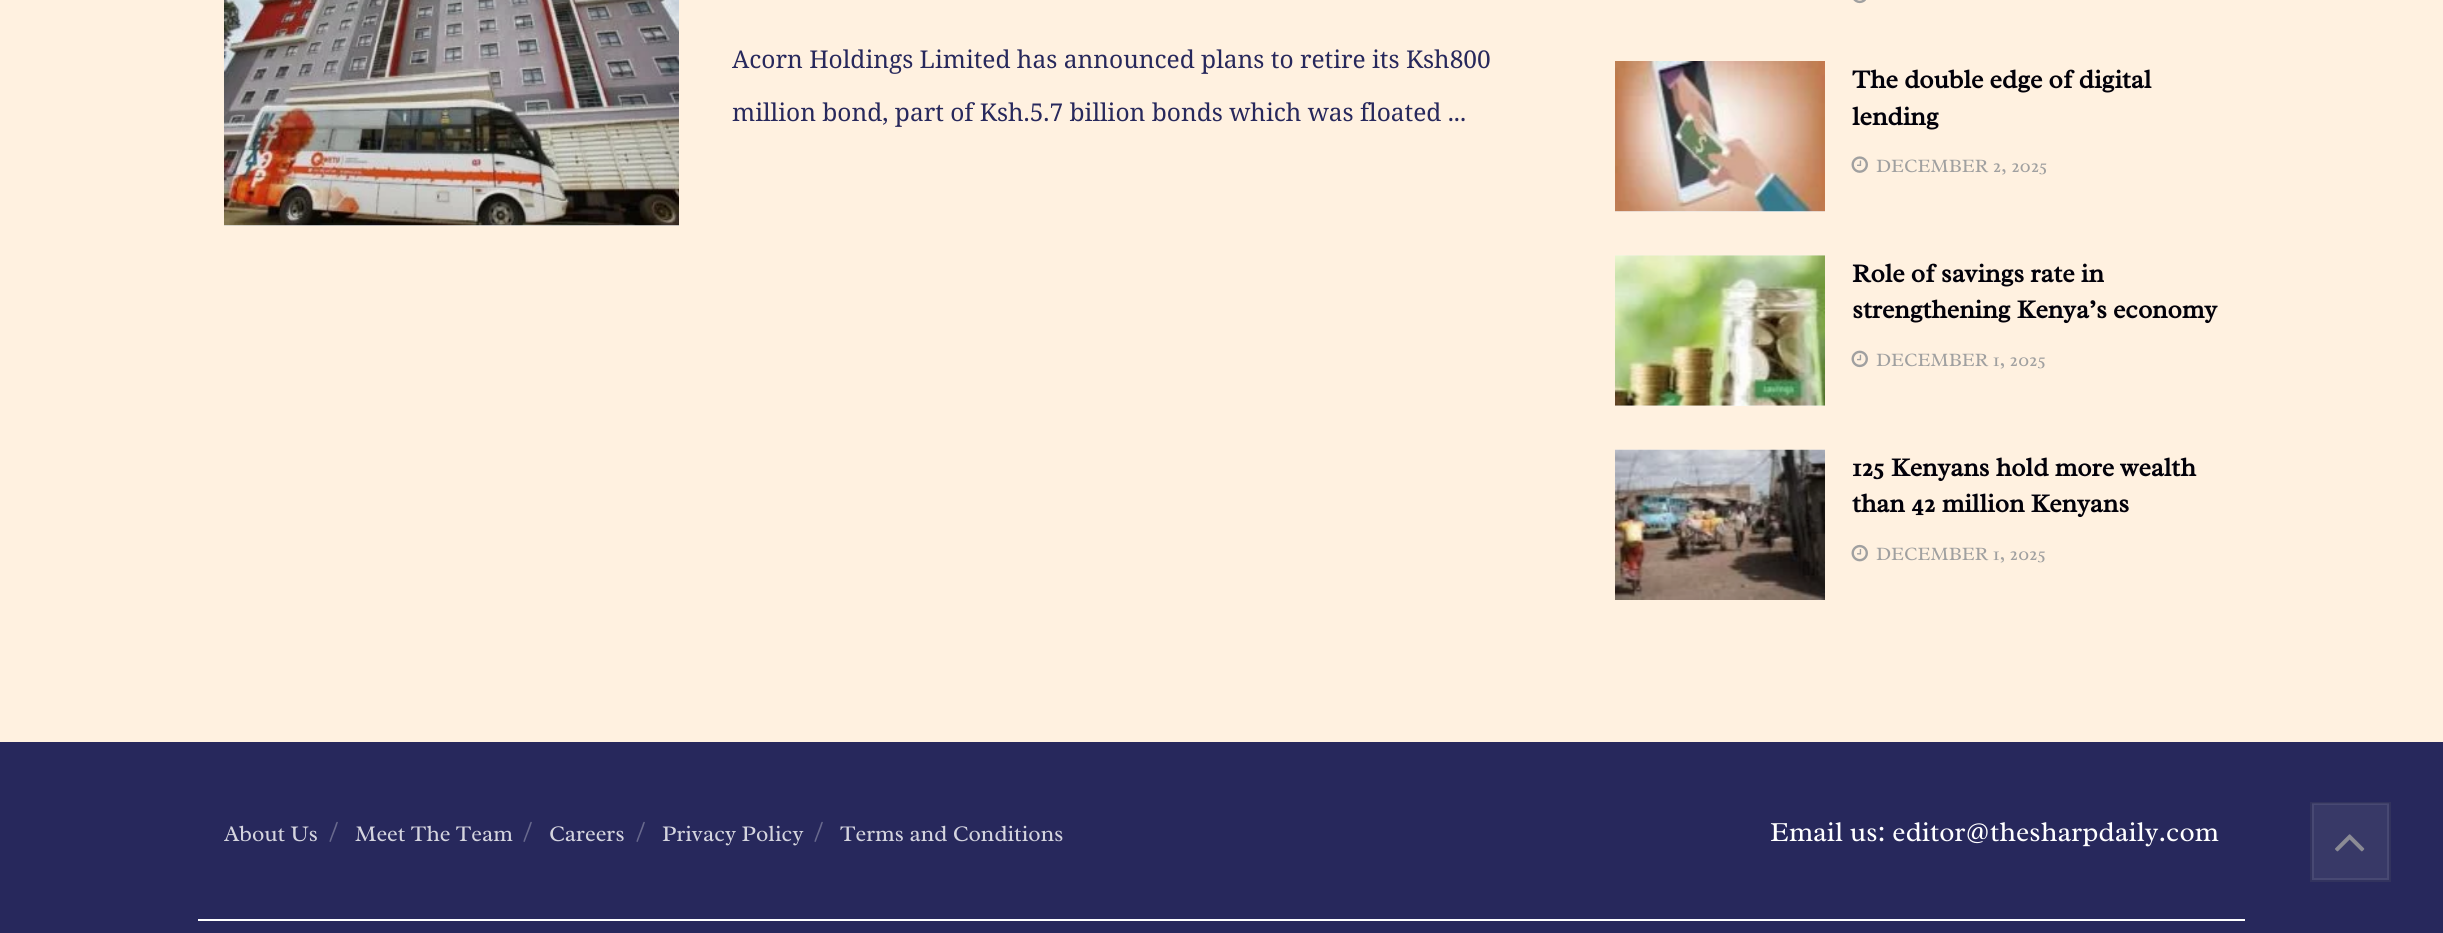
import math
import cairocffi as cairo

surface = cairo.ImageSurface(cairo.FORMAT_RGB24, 2443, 933)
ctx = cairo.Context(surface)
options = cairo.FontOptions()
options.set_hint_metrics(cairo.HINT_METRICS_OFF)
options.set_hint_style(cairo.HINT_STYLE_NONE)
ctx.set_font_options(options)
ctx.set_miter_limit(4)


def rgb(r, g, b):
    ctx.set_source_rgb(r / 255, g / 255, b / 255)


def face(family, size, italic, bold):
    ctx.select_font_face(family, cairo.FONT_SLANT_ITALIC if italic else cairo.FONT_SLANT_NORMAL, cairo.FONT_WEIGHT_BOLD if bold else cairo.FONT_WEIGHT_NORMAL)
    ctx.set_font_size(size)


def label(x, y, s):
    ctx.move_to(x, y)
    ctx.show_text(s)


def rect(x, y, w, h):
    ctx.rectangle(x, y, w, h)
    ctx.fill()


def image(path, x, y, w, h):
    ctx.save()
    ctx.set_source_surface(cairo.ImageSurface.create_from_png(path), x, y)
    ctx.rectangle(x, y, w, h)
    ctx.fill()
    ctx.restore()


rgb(255, 241, 224)
ctx.paint()
rgb(247, 247, 247)
rect(224, 225, 455, 1)
image('image0.png', 224, 0, 455, 226)
face('Noto Serif', 24.5, 0, 0)
rgb(39, 40, 92)
label(732, 68, 'Acorn Holdings Limited has announced plans to retire its Ksh800')
label(732, 121, 'million bond, part of Ksh.5.7 billion bonds which was floated ...')
image('image1.png', 1853, 0, 13, 4)
rgb(247, 247, 247)
rect(1615, 211, 210, 1)
image('image2.png', 1615, 61, 210, 151)
face('Radley', 26.25, 0, 1)
rgb(2, 1, 10)
label(1852, 88, 'The double edge of digital')
label(1852, 125, 'lending')
image('image3.png', 1851, 156, 17, 17)
face('Radley', 19.25, 0, 0)
rgb(160, 160, 160)
label(1876, 172, 'DECEMBER 2, 2025')
rgb(247, 247, 247)
rect(1615, 405, 210, 1)
rgb(250, 244, 236)
rect(1615, 255, 210, 1)
image('image4.png', 1615, 255, 210, 151)
face('Radley', 26.25, 0, 1)
rgb(2, 1, 10)
label(1852, 282, 'Role of savings rate in')
label(1852, 318, 'strengthening Kenya’s economy')
image('image5.png', 1851, 350, 17, 18)
face('Radley', 19.25, 0, 0)
rgb(160, 160, 160)
label(1876, 366, 'DECEMBER 1, 2025')
rgb(253, 243, 230)
rect(1615, 449, 210, 1)
image('image6.png', 1615, 449, 210, 151)
face('Radley', 26.25, 0, 1)
rgb(2, 1, 10)
label(1852, 476, '125 Kenyans hold more wealth')
label(1852, 512, 'than 42 million Kenyans')
image('image7.png', 1851, 544, 17, 18)
face('Radley', 19.25, 0, 0)
rgb(160, 160, 160)
label(1876, 560, 'DECEMBER 1, 2025')
rgb(39, 40, 92)
rect(0, 742, 2443, 191)
face('Radley', 22.75, 0, 0)
rgb(212, 212, 222)
label(224, 841, 'About Us')
face('Radley', 28, 0, 0)
rgb(104, 105, 141)
label(329, 841, '/')
face('Radley', 22.75, 0, 0)
rgb(212, 212, 222)
label(355, 841, 'Meet The Team')
face('Radley', 28, 0, 0)
rgb(104, 105, 141)
label(523, 841, '/')
face('Radley', 22.75, 0, 0)
rgb(212, 212, 222)
label(549, 841, 'Careers')
face('Radley', 28, 0, 0)
rgb(104, 105, 141)
label(636, 841, '/')
face('Radley', 22.75, 0, 0)
rgb(212, 212, 222)
label(662, 841, 'Privacy Policy')
face('Radley', 28, 0, 0)
rgb(104, 105, 141)
label(814, 841, '/')
face('Radley', 22.75, 0, 0)
rgb(212, 212, 222)
label(840, 841, 'Terms and Conditions')
face('Radley', 28, 0, 0)
rgb(255, 255, 255)
label(1770, 841, 'Email us: editor@thesharpdaily.com')
rect(198, 919, 2047, 2)
rgb(56, 57, 103)
rect(2310, 802, 81, 80)
ctx.rectangle(2313, 804, 75, 75)
rgb(72, 73, 115)
ctx.stroke()
ctx.rectangle(2311, 803, 79, 78)
ctx.set_source_rgba(0.031, 0.031, 0.071, 0.11)
ctx.stroke()
image('image8.png', 2335, 834, 30, 18)
surface.write_to_png('render.png')
